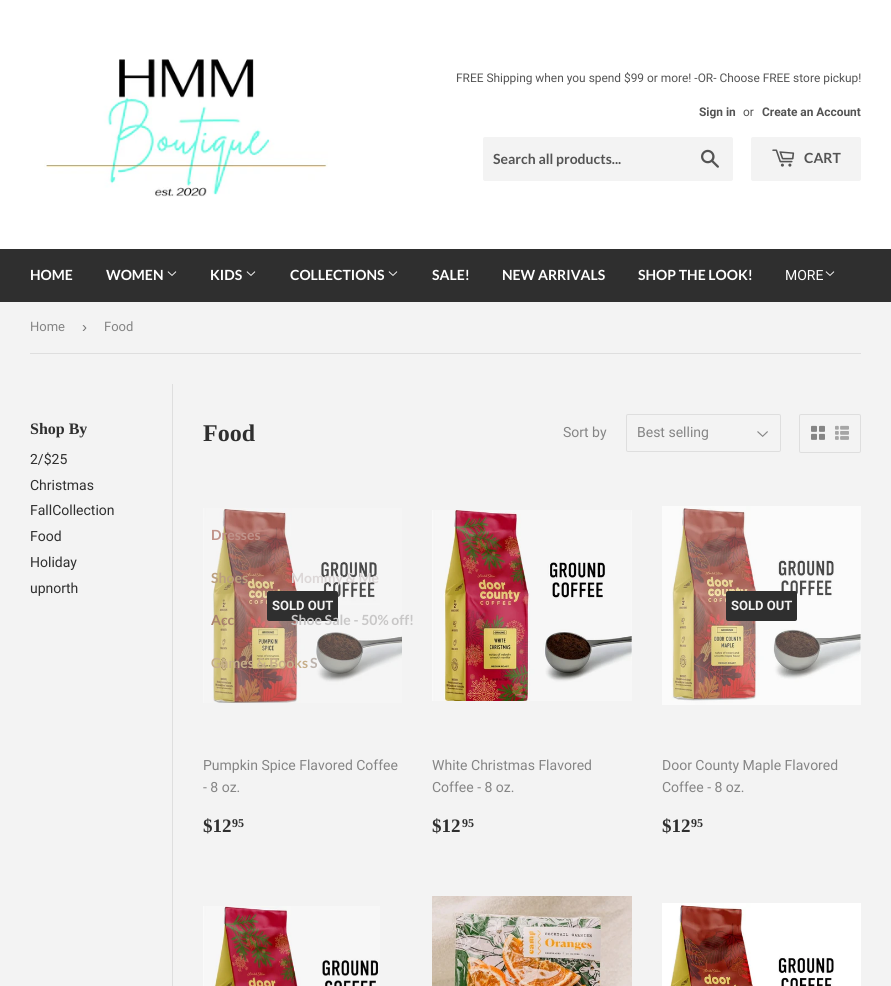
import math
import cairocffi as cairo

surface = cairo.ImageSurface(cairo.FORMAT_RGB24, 891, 986)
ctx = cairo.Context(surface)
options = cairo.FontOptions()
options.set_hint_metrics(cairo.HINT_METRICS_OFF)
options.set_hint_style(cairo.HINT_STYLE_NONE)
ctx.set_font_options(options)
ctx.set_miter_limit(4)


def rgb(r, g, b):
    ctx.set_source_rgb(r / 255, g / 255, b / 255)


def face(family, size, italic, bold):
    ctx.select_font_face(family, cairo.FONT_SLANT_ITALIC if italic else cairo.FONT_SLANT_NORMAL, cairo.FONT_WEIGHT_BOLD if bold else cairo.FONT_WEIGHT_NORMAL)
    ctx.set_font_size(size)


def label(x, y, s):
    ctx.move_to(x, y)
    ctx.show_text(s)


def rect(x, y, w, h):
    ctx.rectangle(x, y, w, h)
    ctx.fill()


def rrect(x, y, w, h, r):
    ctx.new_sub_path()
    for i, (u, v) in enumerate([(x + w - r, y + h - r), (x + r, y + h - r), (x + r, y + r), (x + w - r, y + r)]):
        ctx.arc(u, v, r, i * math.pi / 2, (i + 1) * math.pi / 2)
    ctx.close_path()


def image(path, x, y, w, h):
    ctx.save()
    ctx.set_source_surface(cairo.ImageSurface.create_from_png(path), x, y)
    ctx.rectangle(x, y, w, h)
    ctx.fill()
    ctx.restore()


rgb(243, 243, 243)
ctx.paint()
rgb(255, 255, 255)
rect(0, 0, 891, 249)
image('image0.png', 44, 59, 284, 138)
face('Roboto', 11.9, 0, 0)
rgb(84, 84, 84)
label(456, 82, 'FREE Shipping when you spend $99 or more! -OR- Choose FREE store pickup!')
face('Roboto', 11.9, 0, 1)
label(699, 116, 'Sign in')
face('Roboto', 11.9, 0, 0)
label(743, 116, 'or')
face('Roboto', 11.9, 0, 1)
label(762, 116, 'Create an Account')
rgb(243, 243, 243)
rrect(483, 137, 250, 44, 2)
ctx.fill()
face('Lato', 14, 0, 1)
rgb(84, 84, 84)
label(493, 164, 'Search all products...')
image('image1.png', 701, 149, 18, 19)
rgb(243, 243, 243)
rrect(751, 137, 110, 44, 2)
ctx.fill()
image('image2.png', 772, 149, 23, 18)
rgb(84, 84, 84)
label(804, 163, 'CART')
rgb(47, 47, 47)
rect(0, 249, 891, 53)
rgb(255, 255, 255)
label(30, 280, 'HOME')
label(106, 280, 'WOMEN')
image('image3.png', 167, 271, 10, 5)
label(210, 280, 'KIDS')
image('image3.png', 246, 271, 10, 5)
image('image7.png', 203, 508, 199, 195)
rgb(192, 147, 138)
label(211, 540, 'Dresses')
rgb(187, 159, 125)
label(211, 583, 'Shoes')
rgb(169, 129, 107)
label(211, 625, 'Acc')
rgb(198, 174, 137)
label(211, 668, 'Games & Books')
rgb(255, 255, 255)
label(290, 280, 'COLLECTIONS')
image('image3.png', 388, 271, 10, 5)
rgb(220, 215, 215)
label(291, 583, 'Mommy & Me')
rgb(47, 47, 47)
rrect(267, 591, 71, 30, 2)
ctx.fill()
rgb(200, 199, 199)
label(291, 625, 'Shoe Sale - 50% off!')
rgb(188, 179, 173)
label(310, 668, 'S')
rgb(255, 255, 255)
label(432, 280, 'SALE!')
label(502, 280, 'NEW ARRIVALS')
label(638, 280, 'SHOP THE LOOK!')
face('Roboto', 14, 0, 0)
label(785, 280, 'MORE')
image('image3.png', 825, 271, 10, 5)
rgb(222, 222, 222)
rect(30, 353, 831, 1)
face('Roboto', 13, 0, 0)
rgb(133, 133, 133)
label(30, 331, 'Home')
face('Liberation Sans', 15, 0, 0)
rgb(118, 118, 118)
label(82, 332, '›')
face('Roboto', 13, 0, 0)
rgb(133, 133, 133)
label(104, 331, 'Food')
face('Liberation Serif', 16, 0, 1)
rgb(47, 47, 47)
label(30, 434, 'Shop By')
face('Roboto', 14, 0, 0)
label(30, 464, '2/$25')
label(30, 490, 'Christmas')
label(30, 515, 'FallCollection')
label(30, 541, 'Food')
label(30, 567, 'Holiday')
label(30, 593, 'upnorth')
rgb(222, 222, 222)
rect(172, 384, 1, 602)
face('Liberation Serif', 24, 0, 1)
rgb(47, 47, 47)
label(203, 441, 'Food')
face('Roboto', 14, 0, 0)
rgb(133, 133, 133)
label(563, 437, 'Sort by')
image('image4.png', 757, 431, 11, 6)
rrect(626.5, 414.5, 154, 37, 1.5)
rgb(222, 222, 222)
ctx.set_line_width(1)
ctx.stroke()
rgb(133, 133, 133)
label(637, 437, 'Best selling')
rrect(799.5, 414.5, 61, 38, 1.5)
rgb(222, 222, 222)
ctx.stroke()
image('image5.png', 811, 425, 14, 15)
image('image6.png', 835, 425, 14, 15)
face('Roboto', 13, 0, 1)
rgb(243, 243, 243)
label(272, 610, 'SOLD OUT')
face('Roboto', 14, 0, 0)
rgb(133, 133, 133)
label(203, 770, 'Pumpkin Spice Flavored Coffee')
label(203, 792, '- 8 oz.')
face('Liberation Serif', 19, 0, 1)
rgb(47, 47, 47)
label(203, 832, '$12')
face('Liberation Serif', 12, 0, 1)
label(232, 827, '95')
image('image8.png', 432, 510, 200, 191)
face('Roboto', 14, 0, 0)
rgb(133, 133, 133)
label(432, 770, 'White Christmas Flavored')
label(432, 792, 'Coffee - 8 oz.')
face('Liberation Serif', 19, 0, 1)
rgb(47, 47, 47)
label(432, 832, '$12')
face('Liberation Serif', 12, 0, 1)
label(462, 827, '95')
image('image9.png', 662, 506, 199, 199)
rrect(726, 591, 71, 30, 2)
ctx.fill()
face('Roboto', 13, 0, 1)
rgb(243, 243, 243)
label(731, 610, 'SOLD OUT')
face('Roboto', 14, 0, 0)
rgb(133, 133, 133)
label(662, 770, 'Door County Maple Flavored')
label(662, 792, 'Coffee - 8 oz.')
face('Liberation Serif', 19, 0, 1)
rgb(47, 47, 47)
label(662, 832, '$12')
face('Liberation Serif', 12, 0, 1)
label(691, 827, '95')
image('image10.png', 203, 906, 177, 80)
image('image11.png', 432, 896, 200, 90)
image('image12.png', 662, 903, 199, 83)
surface.write_to_png('render.png')
